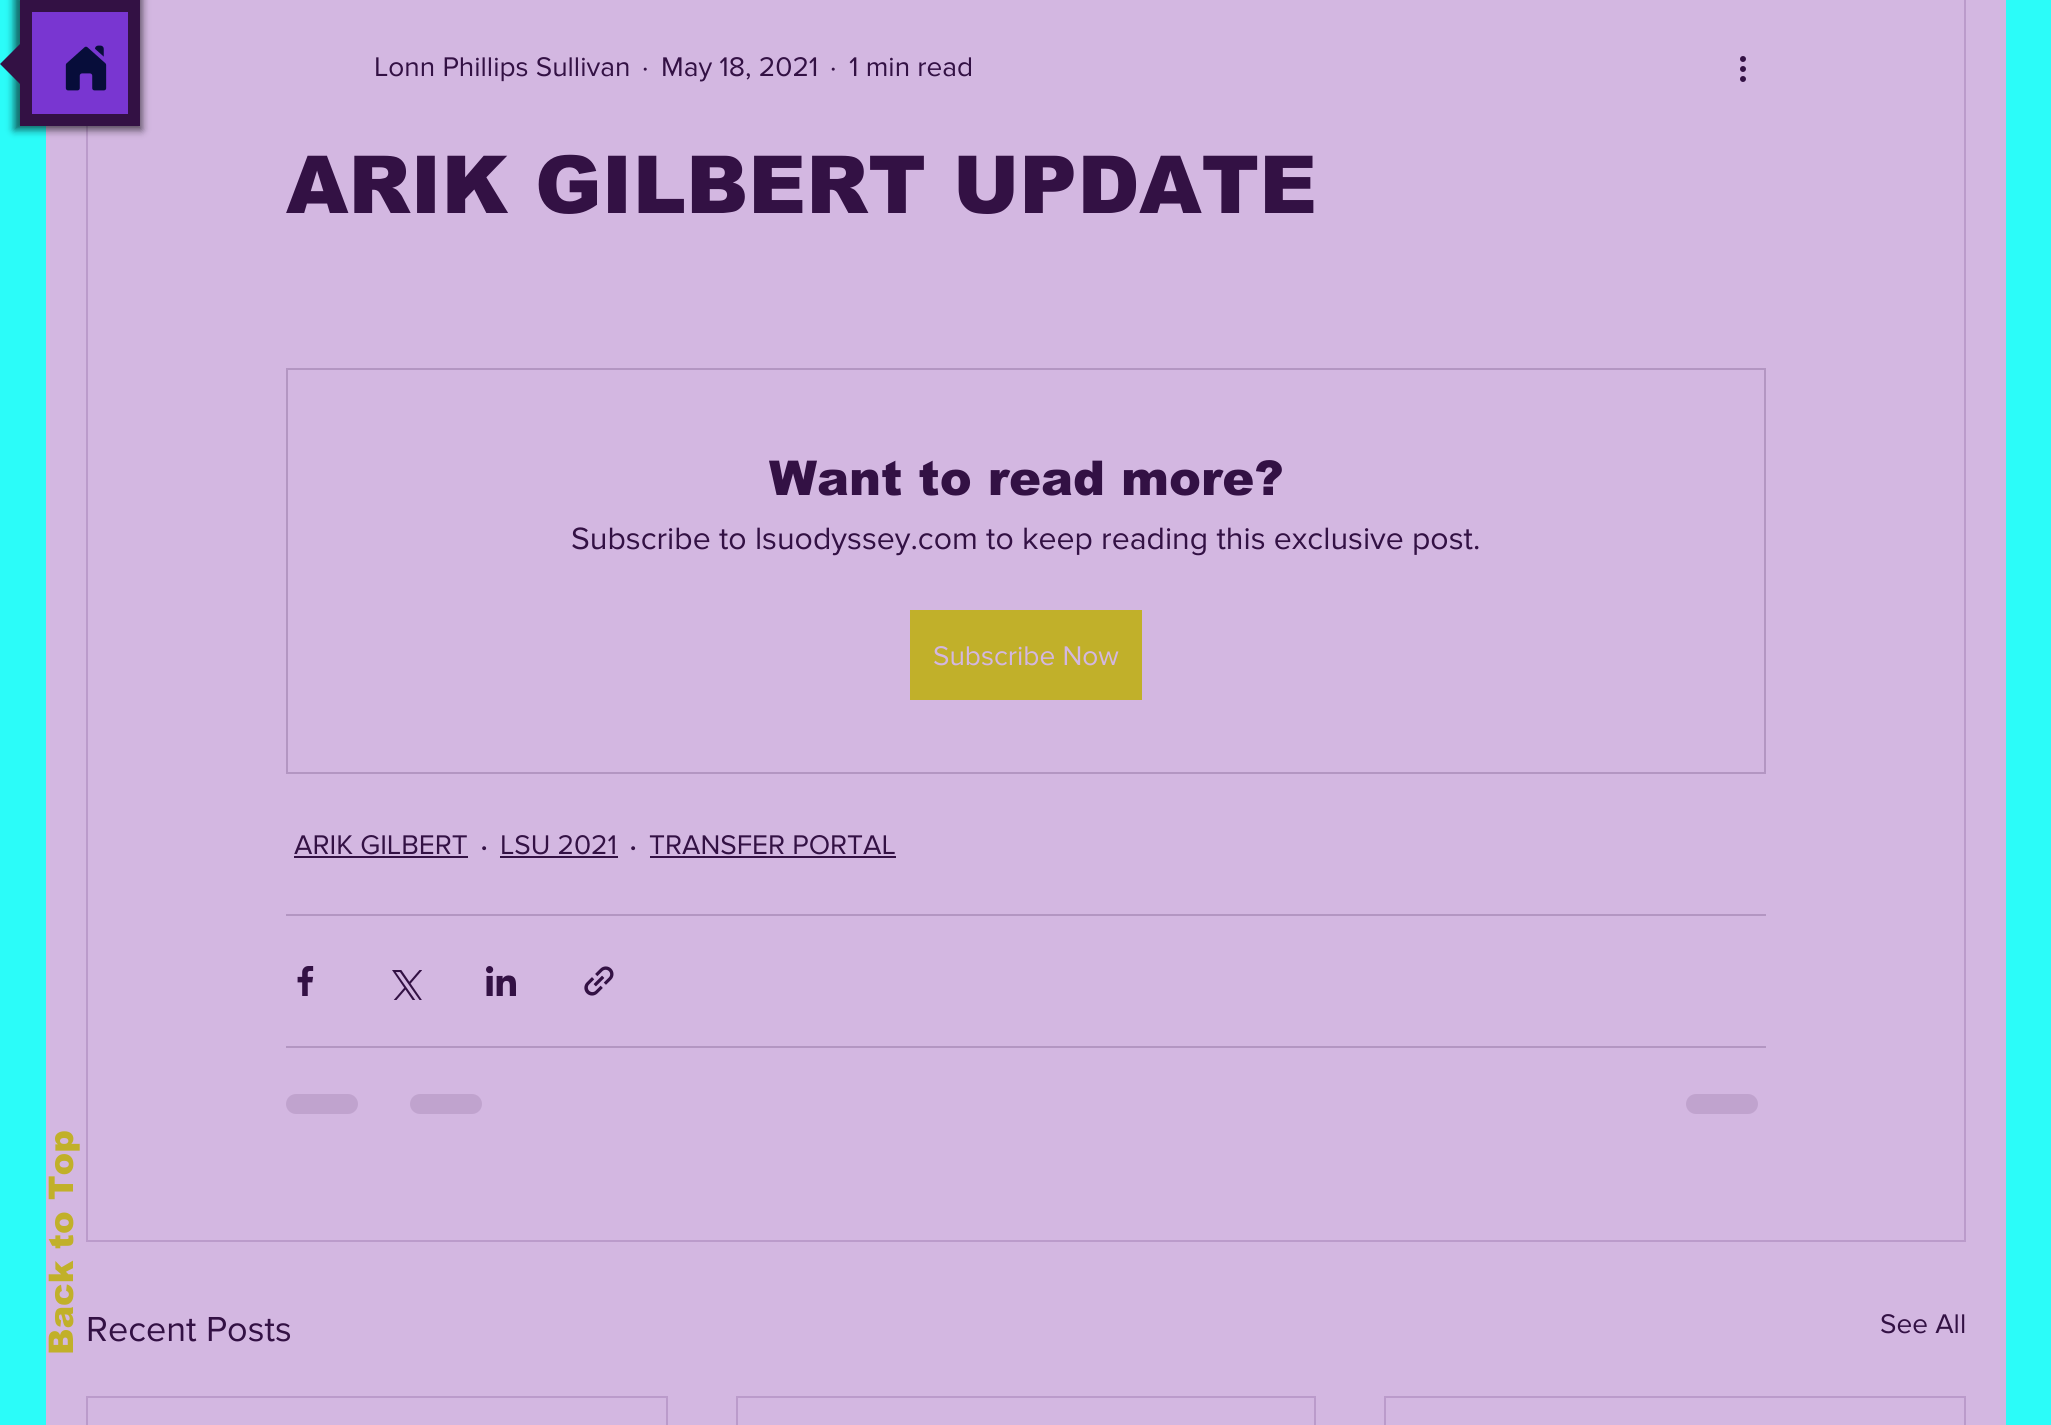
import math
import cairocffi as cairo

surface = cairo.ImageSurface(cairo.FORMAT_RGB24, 2051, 1425)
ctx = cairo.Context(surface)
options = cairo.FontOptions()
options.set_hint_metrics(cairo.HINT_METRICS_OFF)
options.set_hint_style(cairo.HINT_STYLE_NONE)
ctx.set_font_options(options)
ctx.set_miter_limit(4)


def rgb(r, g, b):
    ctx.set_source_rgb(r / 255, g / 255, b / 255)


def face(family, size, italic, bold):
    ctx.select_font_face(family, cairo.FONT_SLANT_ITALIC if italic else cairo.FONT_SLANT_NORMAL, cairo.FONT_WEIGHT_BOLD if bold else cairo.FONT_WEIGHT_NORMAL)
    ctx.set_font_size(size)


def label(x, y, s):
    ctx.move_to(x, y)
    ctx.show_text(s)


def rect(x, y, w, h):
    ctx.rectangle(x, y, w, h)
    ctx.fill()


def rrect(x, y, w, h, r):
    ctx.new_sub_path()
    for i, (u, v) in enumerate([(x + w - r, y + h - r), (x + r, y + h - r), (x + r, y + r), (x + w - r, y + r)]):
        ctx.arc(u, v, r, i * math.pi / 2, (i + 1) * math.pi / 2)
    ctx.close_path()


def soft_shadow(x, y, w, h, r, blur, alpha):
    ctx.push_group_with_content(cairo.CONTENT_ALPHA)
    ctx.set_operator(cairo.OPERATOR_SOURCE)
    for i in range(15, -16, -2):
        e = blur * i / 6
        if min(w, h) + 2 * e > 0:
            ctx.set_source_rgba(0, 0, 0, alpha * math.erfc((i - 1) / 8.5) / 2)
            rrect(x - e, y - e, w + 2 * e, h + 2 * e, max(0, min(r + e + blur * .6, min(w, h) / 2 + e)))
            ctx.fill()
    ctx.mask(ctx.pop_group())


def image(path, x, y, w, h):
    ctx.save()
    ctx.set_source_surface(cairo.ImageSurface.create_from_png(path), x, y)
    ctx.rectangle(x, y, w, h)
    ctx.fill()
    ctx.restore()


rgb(43, 252, 249)
ctx.paint()
rgb(211, 183, 225)
rect(46, 0, 1960, 1425)
ctx.rectangle(87, -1, 1878, 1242)
rgb(187, 155, 203)
ctx.stroke()
rgb(0, 0, 0)
soft_shadow(14, -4, 128, 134, 0, 4, 0.6)
rgb(121, 54, 209)
ctx.rectangle(26, 6, 108, 114)
ctx.fill_preserve()
rgb(51, 17, 68)
ctx.set_line_width(12)
ctx.stroke()
ctx.new_path()
ctx.move_to(20, 44)
ctx.line_to(20, 84)
ctx.line_to(0, 64)
ctx.close_path()
ctx.fill()
image('image0.png', 65, 45, 42, 46)
face('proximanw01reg', 28, 0, 0)
label(374, 76, 'Lonn Phillips Sullivan')
label(642, 76, '·')
label(661, 76, 'May 18, 2021')
label(830, 76, '·')
label(849, 76, '1 min read')
image('image1.png', 1740, 56, 6, 26)
face('arial Black', 80, 0, 0)
label(286, 213, 'ARIK GILBERT UPDATE')
ctx.rectangle(287, 369, 1478, 404)
rgb(179, 150, 194)
ctx.set_line_width(2)
ctx.stroke()
face('arial Black', 48, 0, 0)
rgb(51, 17, 68)
label(769, 495, 'Want to read more?')
face('proximanw01reg', 32, 0, 0)
label(571, 549, 'Subscribe to lsuodyssey.com to keep reading this exclusive post.')
rgb(193, 176, 42)
rect(910, 610, 232, 90)
face('proximanw01reg', 28, 0, 0)
rgb(211, 183, 225)
label(933, 665, 'Subscribe Now')
rgb(51, 17, 68)
label(294, 854, 'ARIK GILBERT')
rect(294, 856, 174, 2)
face('proximanw01reg', 36, 0, 0)
label(480, 857, '·')
face('proximanw01reg', 28, 0, 0)
label(500, 854, 'LSU 2021')
rect(500, 856, 118, 2)
face('proximanw01reg', 36, 0, 0)
label(629, 857, '·')
face('proximanw01reg', 28, 0, 0)
label(649, 854, 'TRANSFER PORTAL')
rect(650, 856, 246, 2)
rgb(179, 150, 194)
rect(286, 914, 1480, 2)
image('image2.png', 297, 966, 17, 30)
image('image3.png', 392, 970, 30, 30)
image('image4.png', 486, 966, 30, 30)
image('image5.png', 584, 966, 30, 30)
rect(286, 1046, 1480, 2)
rgb(192, 163, 206)
rrect(286, 1094, 72, 20, 10)
ctx.fill()
rrect(410, 1094, 72, 20, 10)
ctx.fill()
rrect(1686, 1094, 72, 20, 10)
ctx.fill()
face('proximanw01reg', 36, 0, 0)
rgb(51, 17, 68)
label(86, 1341, 'Recent Posts')
face('proximanw01reg', 28, 0, 0)
label(1880, 1333, 'See All')
ctx.rectangle(87, 1397, 580, 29)
rgb(187, 155, 203)
ctx.stroke()
ctx.rectangle(737, 1397, 578, 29)
ctx.stroke()
ctx.rectangle(1385, 1397, 580, 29)
ctx.stroke()
face('arial Black', 34, 0, 0)
rgb(193, 176, 42)
ctx.save()
ctx.translate(73, 1355)
ctx.rotate(-90 * math.pi / 180)
label(0, 0, 'Back to Top')
ctx.restore()
surface.write_to_png('render.png')
